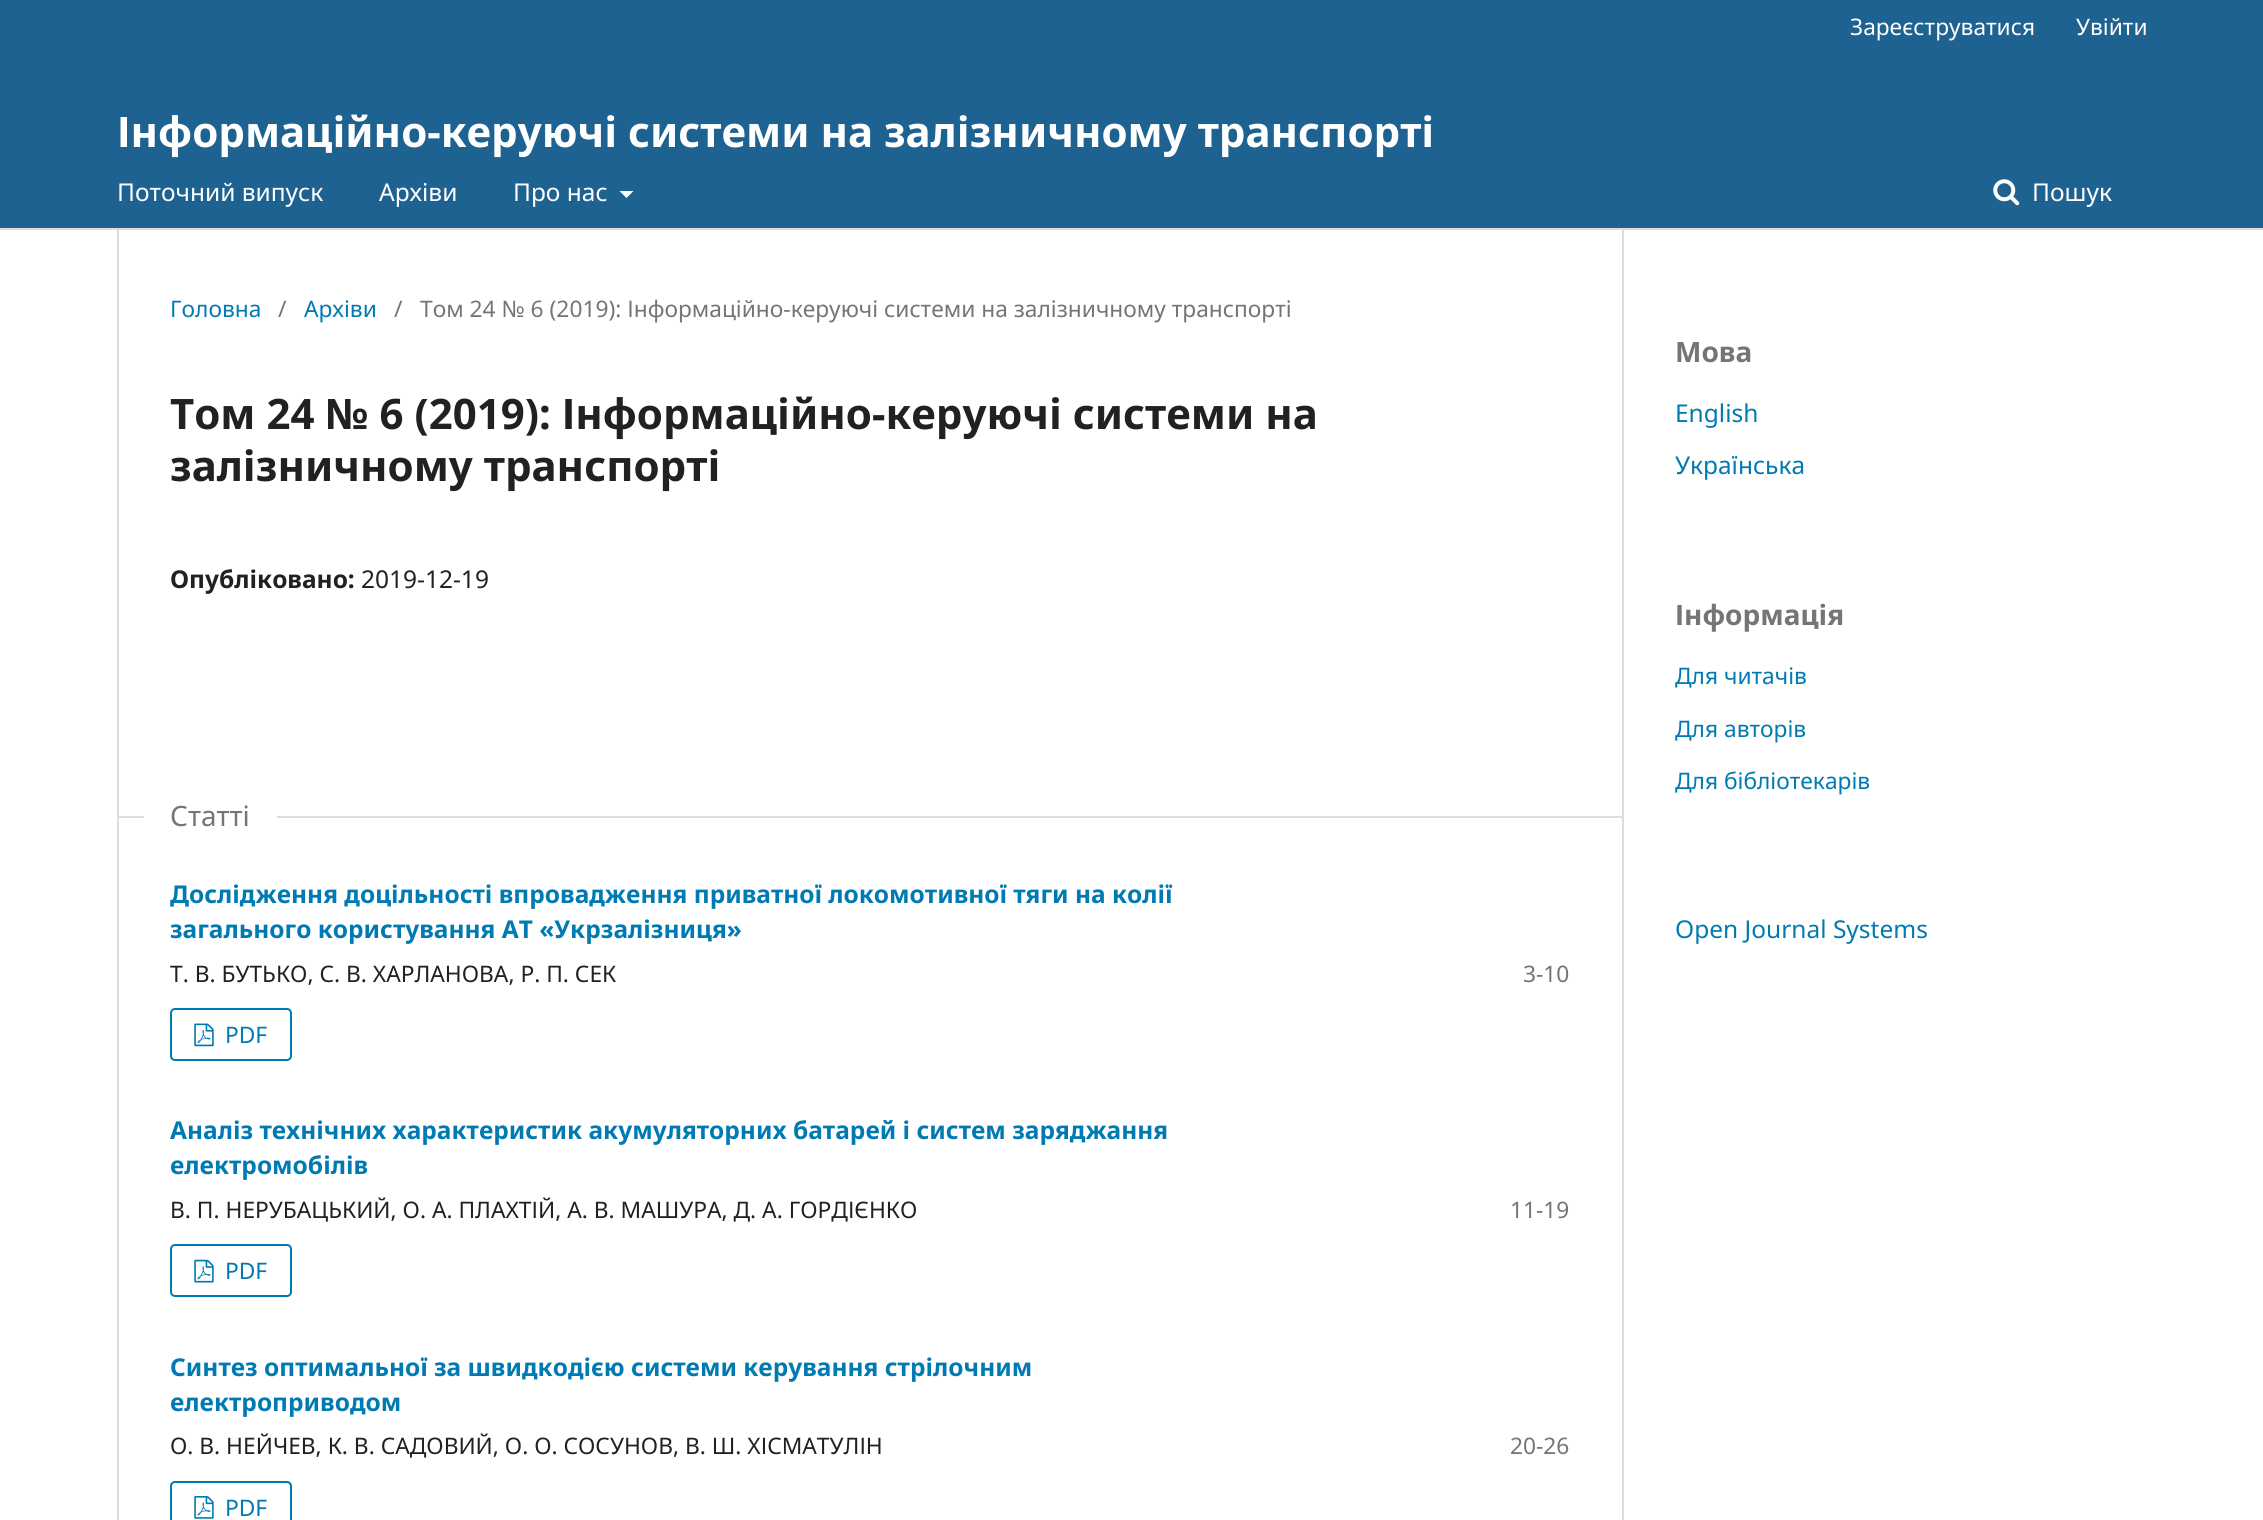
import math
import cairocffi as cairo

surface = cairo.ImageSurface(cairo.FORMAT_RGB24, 2263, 1520)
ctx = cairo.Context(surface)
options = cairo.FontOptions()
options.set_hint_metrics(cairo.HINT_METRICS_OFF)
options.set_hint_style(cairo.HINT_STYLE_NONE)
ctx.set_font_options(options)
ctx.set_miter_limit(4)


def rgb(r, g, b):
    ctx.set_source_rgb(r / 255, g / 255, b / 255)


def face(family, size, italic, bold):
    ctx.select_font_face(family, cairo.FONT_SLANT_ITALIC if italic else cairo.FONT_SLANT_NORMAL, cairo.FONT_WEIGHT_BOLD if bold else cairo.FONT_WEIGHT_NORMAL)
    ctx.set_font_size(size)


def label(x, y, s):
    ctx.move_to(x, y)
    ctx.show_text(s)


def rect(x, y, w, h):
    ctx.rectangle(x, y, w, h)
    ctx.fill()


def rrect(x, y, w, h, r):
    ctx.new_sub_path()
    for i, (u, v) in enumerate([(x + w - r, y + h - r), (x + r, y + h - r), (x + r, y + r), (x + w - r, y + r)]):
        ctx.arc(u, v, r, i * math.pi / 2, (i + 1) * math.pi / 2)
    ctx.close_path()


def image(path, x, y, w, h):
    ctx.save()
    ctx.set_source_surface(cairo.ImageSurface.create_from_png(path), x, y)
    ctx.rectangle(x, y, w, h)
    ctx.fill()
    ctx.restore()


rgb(255, 255, 255)
ctx.paint()
rgb(30, 98, 146)
rect(0, 0, 2263, 228)
rgb(221, 221, 221)
rect(0, 228, 2263, 2)
face('Noto Sans', 22.75, 0, 0)
rgb(255, 255, 255)
label(1850, 35, 'Зареєструватися')
label(2076, 35, 'Увійти')
face('Noto Sans', 24.5, 0, 0)
label(117, 201, 'Поточний випуск')
label(379, 201, 'Архіви')
label(513, 201, 'Про нас')
ctx.new_path()
ctx.move_to(619.5, 191)
ctx.line_to(633.5, 191)
ctx.line_to(626.5, 198)
ctx.close_path()
ctx.fill()
image('image0.png', 1993, 179, 27, 27)
label(2032, 201, 'Пошук')
face('Noto Sans', 42, 0, 1)
label(117, 147, 'Інформаційно-керуючі системи на залізничному транспорті')
rgb(221, 221, 221)
rect(117, 229, 2, 1291)
face('Noto Sans', 22.75, 0, 0)
rgb(0, 122, 178)
label(170, 317, 'Головна')
rgb(117, 117, 117)
label(278, 317, '/')
rgb(0, 122, 178)
label(304, 317, 'Архіви')
rgb(117, 117, 117)
label(394, 317, '/')
label(420, 317, 'Том 24 № 6 (2019): Інформаційно-керуючі системи на залізничному транспорті')
face('Noto Sans', 42, 0, 1)
rgb(33, 33, 33)
label(170, 429, 'Том 24 № 6 (2019): Інформаційно-керуючі системи на')
label(170, 481, 'залізничному транспорті')
face('Noto Sans', 24.5, 0, 1)
label(170, 588, 'Опубліковано:')
face('Noto Sans', 24.5, 0, 0)
label(361, 588, '2019-12-19')
rgb(221, 221, 221)
rect(117, 816, 1505, 2)
rgb(255, 255, 255)
rect(144, 816, 133, 2)
face('Noto Sans', 28, 0, 0)
rgb(117, 117, 117)
label(170, 826, 'Статті')
face('Noto Sans', 24.5, 0, 1)
rgb(0, 122, 178)
label(170, 903, 'Дослідження доцільності впровадження приватної локомотивної тяги на колії')
label(170, 938, 'загального користування АТ «Укрзалізниця»')
face('Noto Sans', 22.75, 0, 0)
rgb(33, 33, 33)
label(170, 982, 'Т. В. БУТЬКО, С. В. ХАРЛАНОВА, Р. П. СЕК')
rgb(117, 117, 117)
label(1523, 982, '3-10')
rrect(171, 1009, 120, 51, 4)
rgb(0, 122, 178)
ctx.stroke()
image('image1.png', 194, 1023, 20, 24)
label(225, 1043, 'PDF')
face('Noto Sans', 24.5, 0, 1)
label(170, 1139, 'Аналіз технічних характеристик акумуляторних батарей і систем заряджання')
label(170, 1174, 'електромобілів')
face('Noto Sans', 22.75, 0, 0)
rgb(33, 33, 33)
label(170, 1218, 'В. П. НЕРУБАЦЬКИЙ, О. А. ПЛАХТІЙ, А. В. МАШУРА, Д. А. ГОРДІЄНКО')
rgb(117, 117, 117)
label(1510, 1218, '11-19')
rrect(171, 1245, 120, 51, 4)
rgb(0, 122, 178)
ctx.stroke()
image('image2.png', 194, 1259, 20, 24)
label(225, 1279, 'PDF')
face('Noto Sans', 24.5, 0, 1)
label(170, 1376, 'Синтез оптимальної за швидкодією системи керування стрілочним')
label(170, 1411, 'електроприводом')
face('Noto Sans', 22.75, 0, 0)
rgb(33, 33, 33)
label(170, 1454, 'О. В. НЕЙЧЕВ, К. В. САДОВИЙ, О. О. СОСУНОВ, В. Ш. ХІСМАТУЛІН')
rgb(117, 117, 117)
label(1510, 1454, '20-26')
rrect(171, 1482, 120, 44, 4)
rgb(0, 122, 178)
ctx.stroke()
image('image3.png', 194, 1496, 20, 23)
label(225, 1516, 'PDF')
rgb(221, 221, 221)
rect(1622, 229, 2, 1291)
face('Noto Sans', 28, 0, 1)
rgb(117, 117, 117)
label(1675, 362, 'Мова')
face('Noto Sans', 24.5, 0, 0)
rgb(0, 122, 178)
label(1675, 422, 'English')
label(1675, 474, 'Українська')
face('Noto Sans', 28, 0, 1)
rgb(117, 117, 117)
label(1675, 625, 'Інформація')
face('Noto Sans', 22.75, 0, 0)
rgb(0, 122, 178)
label(1675, 684, 'Для читачів')
label(1675, 737, 'Для авторів')
label(1675, 789, 'Для бібліотекарів')
face('Noto Sans', 24.5, 0, 0)
label(1675, 938, 'Open Journal Systems')
surface.write_to_png('render.png')
